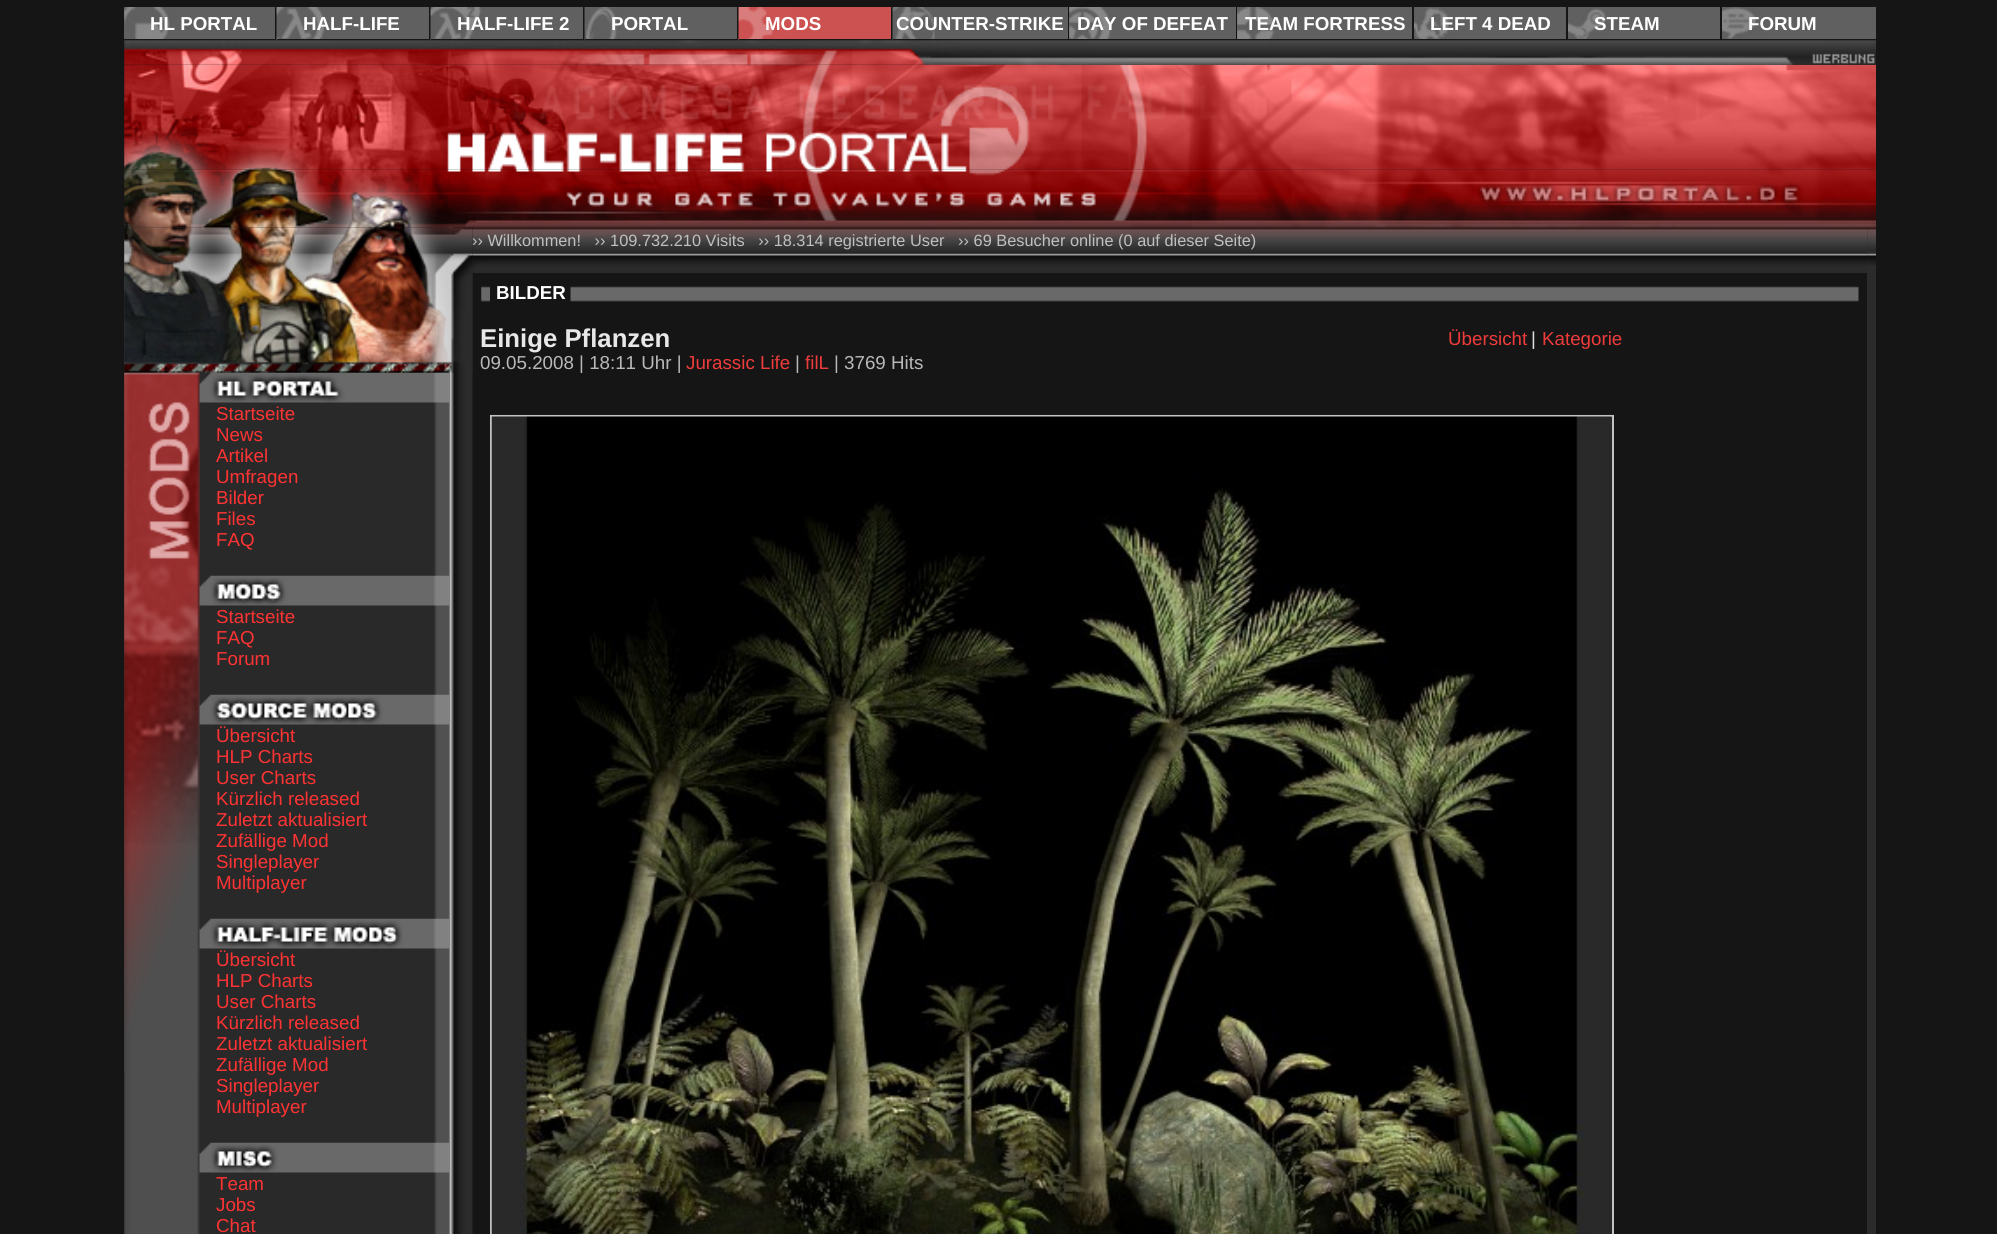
import math
import cairocffi as cairo

surface = cairo.ImageSurface(cairo.FORMAT_RGB24, 1997, 1234)
ctx = cairo.Context(surface)
options = cairo.FontOptions()
options.set_hint_metrics(cairo.HINT_METRICS_OFF)
options.set_hint_style(cairo.HINT_STYLE_NONE)
ctx.set_font_options(options)
ctx.set_miter_limit(4)


def rgb(r, g, b):
    ctx.set_source_rgb(r / 255, g / 255, b / 255)


def face(family, size, italic, bold):
    ctx.select_font_face(family, cairo.FONT_SLANT_ITALIC if italic else cairo.FONT_SLANT_NORMAL, cairo.FONT_WEIGHT_BOLD if bold else cairo.FONT_WEIGHT_NORMAL)
    ctx.set_font_size(size)


def label(x, y, s):
    ctx.move_to(x, y)
    ctx.show_text(s)


def rect(x, y, w, h):
    ctx.rectangle(x, y, w, h)
    ctx.fill()


def image(path, x, y, w, h):
    ctx.save()
    ctx.set_source_surface(cairo.ImageSurface.create_from_png(path), x, y)
    ctx.rectangle(x, y, w, h)
    ctx.fill()
    ctx.restore()


rgb(21, 21, 21)
ctx.paint()
rgb(96, 96, 96)
rect(124, 7, 151, 32)
image('image0.png', 124, 7, 55, 32)
face('Liberation Sans', 18.75, 0, 1)
rgb(255, 255, 255)
label(150, 30, 'HL PORTAL')
rgb(96, 96, 96)
rect(329, 7, 100, 32)
image('image1.png', 276, 7, 53, 34)
rgb(21, 21, 21)
rect(277, 39, 52, 2)
rgb(255, 255, 255)
label(303, 30, 'HALF-LIFE')
rgb(96, 96, 96)
rect(483, 7, 100, 32)
image('image2.png', 430, 7, 53, 34)
rgb(21, 21, 21)
rect(431, 39, 52, 2)
rgb(255, 255, 255)
label(457, 30, 'HALF-LIFE 2')
rgb(96, 96, 96)
rect(637, 7, 100, 32)
image('image3.png', 584, 7, 53, 34)
rgb(21, 21, 21)
rect(585, 39, 52, 2)
rgb(255, 255, 255)
label(611, 30, 'PORTAL')
rgb(204, 82, 82)
rect(791, 7, 100, 32)
image('image4.png', 738, 7, 53, 34)
rgb(21, 21, 21)
rect(739, 39, 52, 2)
rgb(255, 255, 255)
label(765, 30, 'MODS')
rgb(96, 96, 96)
rect(945, 7, 123, 32)
image('image5.png', 892, 7, 53, 34)
rgb(21, 21, 21)
rect(893, 39, 52, 2)
rgb(255, 255, 255)
label(896, 30, 'COUNTER-STRIKE')
rgb(96, 96, 96)
rect(1069, 7, 167, 32)
image('image6.png', 1069, 7, 53, 32)
rgb(255, 255, 255)
label(1077, 30, 'DAY OF DEFEAT')
rgb(96, 96, 96)
rect(1237, 7, 175, 32)
image('image7.png', 1237, 7, 53, 32)
rgb(255, 255, 255)
label(1245, 30, 'TEAM FORTRESS')
rgb(96, 96, 96)
rect(1466, 7, 100, 32)
image('image8.png', 1414, 7, 53, 32)
rgb(255, 255, 255)
label(1430, 30, 'LEFT 4 DEAD')
rgb(96, 96, 96)
rect(1568, 7, 152, 32)
image('image9.png', 1568, 8, 53, 31)
rgb(255, 255, 255)
label(1594, 30, 'STEAM')
rgb(96, 96, 96)
rect(1774, 7, 102, 32)
image('image10.png', 1722, 7, 53, 32)
rgb(255, 255, 255)
label(1748, 30, 'FORUM')
image('image11.png', 124, 40, 933, 25)
image('image14.png', 1057, 64, 819, 106)
image('image12.png', 1057, 40, 819, 25)
image('image13.png', 124, 64, 933, 106)
image('image25.png', 124, 227, 349, 1007)
image('image17.png', 472, 227, 1396, 27)
image('image15.png', 124, 169, 933, 59)
rgb(43, 43, 43)
rect(1867, 228, 9, 1006)
image('image23.png', 1867, 227, 9, 22)
image('image16.png', 1057, 169, 819, 59)
image('image26.png', 124, 227, 349, 146)
face('Liberation Sans', 16.35, 0, 0)
rgb(192, 192, 192)
label(472, 246, '›› Willkommen!   ›› 109.732.210 Visits   ›› 18.314 registrierte User   ›› 69 Besucher online (0 auf dieser Seite)')
image('image18.png', 472, 253, 1396, 20)
image('image19.png', 481, 286, 9, 16)
face('Liberation Sans', 18.75, 0, 1)
rgb(255, 255, 255)
label(496, 299, 'BILDER')
image('image20.png', 570, 286, 1289, 16)
face('Liberation Sans', 25.75, 0, 1)
rgb(232, 232, 232)
label(480, 347, 'Einige Pflanzen')
face('Liberation Sans', 18.75, 0, 0)
rgb(239, 59, 59)
label(1448, 345, 'Übersicht')
rgb(224, 224, 224)
label(1531, 345, '|')
rgb(239, 59, 59)
label(1542, 345, 'Kategorie')
rgb(185, 185, 185)
label(480, 369, '09.05.2008 | 18:11 Uhr |')
rgb(239, 59, 59)
label(686, 369, 'Jurassic Life')
rgb(185, 185, 185)
label(795, 369, '|')
rgb(239, 59, 59)
label(805, 369, 'filL')
rgb(185, 185, 185)
label(834, 369, '| 3769 Hits')
image('image21.png', 490, 414, 1124, 820)
ctx.rectangle(491, 416, 1122, 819)
rgb(195, 195, 195)
ctx.stroke()
image('image22.png', 491, 416, 1121, 818)
image('image24.png', 1867, 253, 9, 12)
image('image27.png', 124, 372, 76, 701)
image('image28.png', 199, 372, 251, 31)
rgb(255, 51, 51)
label(216, 420, 'Startseite')
label(216, 441, 'News')
label(216, 462, 'Artikel')
label(216, 483, 'Umfragen')
label(216, 504, 'Bilder')
label(216, 525, 'Files')
label(216, 546, 'FAQ')
image('image29.png', 199, 575, 251, 31)
label(216, 623, 'Startseite')
label(216, 644, 'FAQ')
label(216, 665, 'Forum')
image('image30.png', 199, 694, 251, 31)
label(216, 742, 'Übersicht')
label(216, 763, 'HLP Charts')
label(216, 784, 'User Charts')
label(216, 805, 'Kürzlich released')
label(216, 826, 'Zuletzt aktualisiert')
label(216, 847, 'Zufällige Mod')
label(216, 868, 'Singleplayer')
label(216, 889, 'Multiplayer')
image('image31.png', 199, 918, 251, 31)
label(216, 966, 'Übersicht')
label(216, 987, 'HLP Charts')
label(216, 1008, 'User Charts')
label(216, 1029, 'Kürzlich released')
label(216, 1050, 'Zuletzt aktualisiert')
label(216, 1071, 'Zufällige Mod')
label(216, 1092, 'Singleplayer')
label(216, 1113, 'Multiplayer')
image('image32.png', 199, 1142, 251, 31)
label(216, 1190, 'Team')
label(216, 1211, 'Jobs')
label(216, 1232, 'Chat')
surface.write_to_png('render.png')
